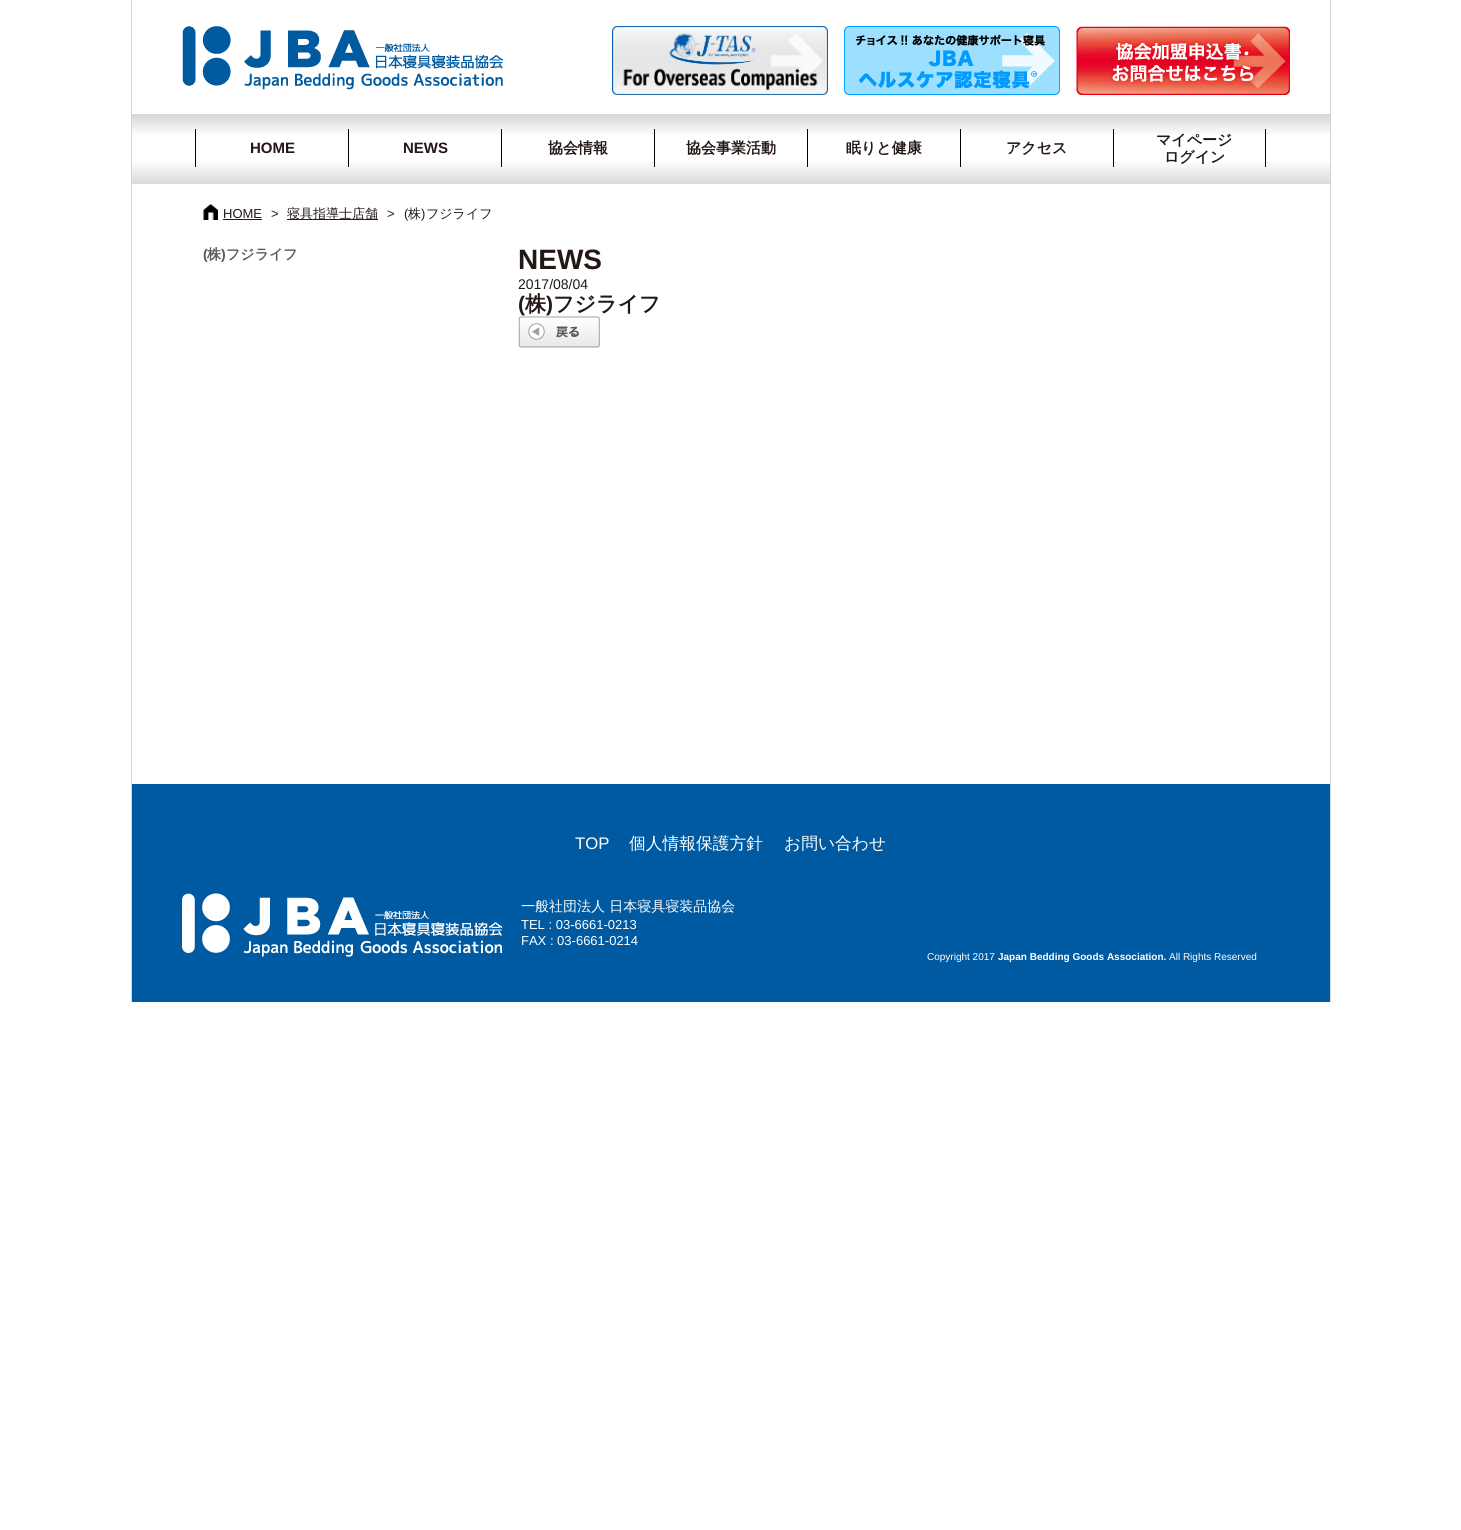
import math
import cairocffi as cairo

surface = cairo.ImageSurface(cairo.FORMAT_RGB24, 1461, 1530)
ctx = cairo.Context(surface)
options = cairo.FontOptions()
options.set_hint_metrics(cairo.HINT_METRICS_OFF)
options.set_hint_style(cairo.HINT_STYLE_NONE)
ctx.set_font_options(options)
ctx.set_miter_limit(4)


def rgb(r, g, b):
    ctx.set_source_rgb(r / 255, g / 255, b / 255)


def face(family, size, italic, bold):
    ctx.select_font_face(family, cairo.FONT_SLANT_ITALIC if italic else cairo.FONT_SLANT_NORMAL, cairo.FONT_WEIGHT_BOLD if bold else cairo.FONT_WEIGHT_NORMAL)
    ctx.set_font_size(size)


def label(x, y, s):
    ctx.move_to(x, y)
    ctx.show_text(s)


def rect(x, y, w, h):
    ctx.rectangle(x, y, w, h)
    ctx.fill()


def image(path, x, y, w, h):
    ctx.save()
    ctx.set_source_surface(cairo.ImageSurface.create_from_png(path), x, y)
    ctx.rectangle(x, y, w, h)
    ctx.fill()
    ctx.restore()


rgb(255, 255, 255)
ctx.paint()
rgb(213, 213, 214)
rect(1330, 0, 1, 1002)
rect(131, 0, 1, 1002)
image('image0.png', 182, 26, 321, 64)
image('image1.png', 612, 26, 216, 69)
image('image2.png', 844, 26, 216, 69)
image('image3.png', 1076, 26, 214, 69)
gradient = cairo.LinearGradient(731, 114, 731, 184)
gradient.add_color_stop_rgba(0, 0.835, 0.835, 0.839, 1)
gradient.add_color_stop_rgba(0.31, 1, 1, 1, 1)
gradient.add_color_stop_rgba(0.67, 1, 1, 1, 1)
gradient.add_color_stop_rgba(1, 0.851, 0.851, 0.855, 1)
ctx.set_source(gradient)
rect(132, 114, 1198, 70)
rgb(0, 0, 0)
rect(195, 129, 1, 38)
face('Liberation Sans', 15, 0, 1)
rgb(35, 24, 21)
label(250, 153, 'HOME')
rgb(0, 0, 0)
rect(348, 129, 1, 38)
rgb(35, 24, 21)
label(403, 153, 'NEWS')
rgb(0, 0, 0)
rect(501, 129, 1, 38)
face('WenQuanYi Zen Hei', 15, 0, 1)
rgb(35, 24, 21)
label(548, 153, '協会情報')
rgb(0, 0, 0)
rect(654, 129, 1, 38)
rgb(35, 24, 21)
label(686, 153, '協会事業活動')
rgb(0, 0, 0)
rect(807, 129, 1, 38)
rgb(35, 24, 21)
label(846, 153, '眠りと健康')
rgb(0, 0, 0)
rect(960, 129, 1, 38)
rgb(35, 24, 21)
label(1006, 153, 'アクセス')
rgb(0, 0, 0)
rect(1265, 129, 1, 38)
rect(1113, 129, 1, 38)
rgb(35, 24, 21)
label(1156, 145, 'マイページ')
label(1164, 162, 'ログイン')
image('image4.png', 203, 204, 15, 16)
face('Liberation Sans', 13, 0, 0)
label(223, 218, 'HOME')
rect(223, 219, 39, 1)
label(271, 218, '>')
rect(287, 219, 91, 1)
face('WenQuanYi Zen Hei Medium', 13, 0, 0)
label(287, 218, '寝具指導士店舗')
face('Liberation Sans', 13, 0, 0)
label(387, 218, '>')
label(404, 218, '(')
face('WenQuanYi Zen Hei Medium', 13, 0, 0)
label(408, 218, '株')
face('Liberation Sans', 13, 0, 0)
label(421, 218, ')')
face('WenQuanYi Zen Hei Medium', 13, 0, 0)
label(426, 218, 'フジライフ')
face('Liberation Sans', 14, 0, 1)
rgb(89, 87, 87)
label(203, 259, '(')
face('WenQuanYi Zen Hei', 14, 0, 1)
label(207, 259, '株')
face('Liberation Sans', 14, 0, 1)
label(221, 259, ')')
face('WenQuanYi Zen Hei', 14, 0, 1)
label(226, 259, 'フジライフ')
face('Liberation Sans', 28, 0, 1)
rgb(35, 24, 21)
label(518, 269, 'NEWS')
face('Liberation Sans', 14, 0, 0)
label(518, 289, '2017/08/04')
face('Liberation Sans', 21, 0, 1)
label(518, 311, '(')
face('WenQuanYi Zen Hei', 21, 0, 1)
label(525, 311, '株')
face('Liberation Sans', 21, 0, 1)
label(546, 311, ')')
face('WenQuanYi Zen Hei', 21, 0, 1)
label(553, 311, 'フジライフ')
image('image5.png', 518, 316, 82, 32)
rgb(0, 90, 161)
rect(132, 784, 1198, 218)
face('Liberation Sans', 16.75, 0, 0)
rgb(255, 255, 255)
label(575, 849, 'TOP')
face('WenQuanYi Zen Hei Medium', 16.75, 0, 0)
label(629, 849, '個人情報保護方針')
label(784, 849, 'お問い合わせ')
image('image6.png', 182, 893, 321, 64)
face('WenQuanYi Zen Hei Medium', 14, 0, 0)
label(521, 911, '一般社団法人 日本寝具寝装品協会')
face('Liberation Sans', 13, 0, 0)
label(521, 929, 'TEL : 03-6661-0213')
label(521, 945, 'FAX : 03-6661-0214')
face('Liberation Sans', 10, 0, 0)
label(927, 960, 'Copyright 2017')
face('Liberation Sans', 10, 0, 1)
label(998, 960, 'Japan Bedding Goods Association.')
face('Liberation Sans', 10, 0, 0)
label(1169, 960, 'All Rights Reserved')
surface.write_to_png('render.png')
